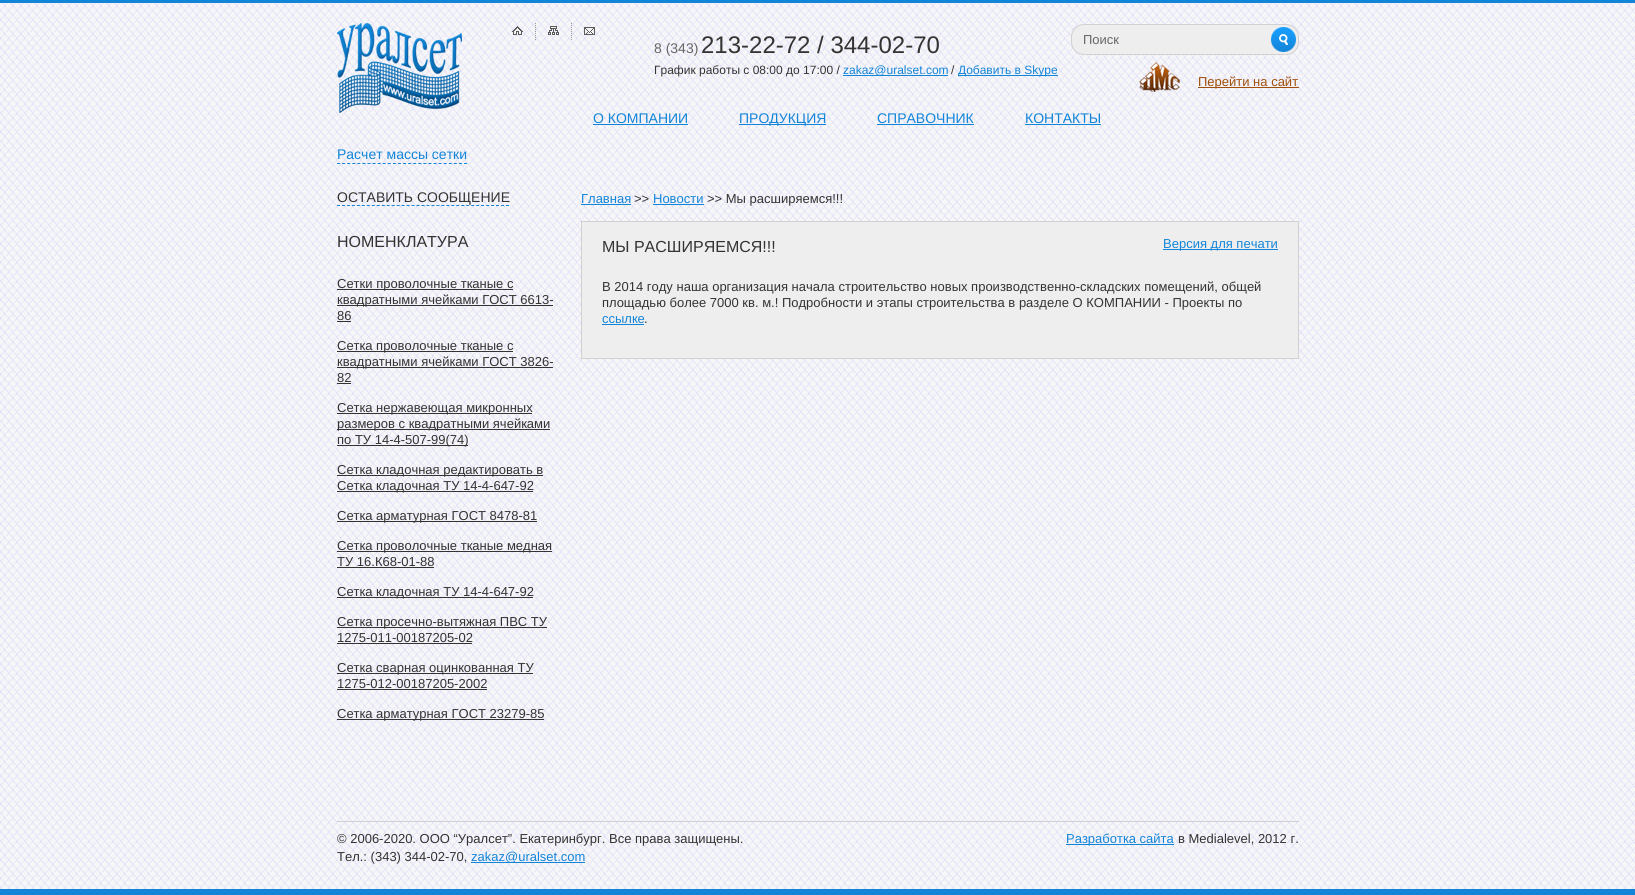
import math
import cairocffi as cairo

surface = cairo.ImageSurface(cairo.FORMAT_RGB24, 1635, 895)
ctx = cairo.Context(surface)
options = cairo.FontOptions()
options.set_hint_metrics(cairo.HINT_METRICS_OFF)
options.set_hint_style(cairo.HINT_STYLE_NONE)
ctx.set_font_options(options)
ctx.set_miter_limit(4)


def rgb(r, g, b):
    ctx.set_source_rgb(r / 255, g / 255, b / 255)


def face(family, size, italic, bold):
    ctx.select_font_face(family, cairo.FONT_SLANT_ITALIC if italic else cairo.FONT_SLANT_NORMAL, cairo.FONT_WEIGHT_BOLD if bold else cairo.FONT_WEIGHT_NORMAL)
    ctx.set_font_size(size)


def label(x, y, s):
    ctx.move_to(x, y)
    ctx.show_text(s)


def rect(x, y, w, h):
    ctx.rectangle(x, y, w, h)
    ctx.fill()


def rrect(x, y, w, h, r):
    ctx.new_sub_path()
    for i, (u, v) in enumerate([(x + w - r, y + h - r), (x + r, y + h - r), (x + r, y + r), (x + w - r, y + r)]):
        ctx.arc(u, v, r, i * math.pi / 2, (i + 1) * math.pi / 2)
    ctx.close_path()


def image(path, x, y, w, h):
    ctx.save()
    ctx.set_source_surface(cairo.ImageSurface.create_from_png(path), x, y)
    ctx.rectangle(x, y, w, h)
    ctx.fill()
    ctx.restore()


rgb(255, 255, 255)
ctx.paint()
image('image0.png', 0, 3, 1635, 886)
rgb(18, 133, 216)
rect(0, 0, 1635, 3)
image('image1.png', 337, 23, 125, 90)
image('image2.png', 512, 26, 11, 9)
ctx.new_path()
ctx.move_to(535.5, 23)
ctx.line_to(535.5, 40)
ctx.move_to(571.5, 23)
ctx.line_to(571.5, 40)
rgb(153, 153, 153)
ctx.set_line_width(1)
ctx.set_dash([1, 1])
ctx.stroke()
image('image3.png', 548, 26, 11, 9)
image('image4.png', 584, 27, 11, 8)
face('Liberation Sans', 14, 0, 0)
rgb(102, 102, 102)
label(654, 53, '8 (343)')
face('Liberation Sans', 24, 0, 0)
rgb(51, 51, 51)
label(701, 53, '213-22-72 / 344-02-70')
face('Liberation Sans', 12, 0, 0)
label(654, 74, 'График работы с 08:00 до 17:00 /')
rgb(18, 133, 216)
rect(843, 75, 105, 1)
label(843, 74, 'zakaz@uralset.com')
rgb(51, 51, 51)
label(951, 74, '/')
rgb(18, 133, 216)
rect(958, 75, 100, 1)
label(958, 74, 'Добавить в Skype')
rgb(238, 238, 238)
rrect(1071.5, 24.5, 227, 30, 12.5)
ctx.fill_preserve()
rgb(209, 209, 210)
ctx.set_dash([])
ctx.stroke()
face('Liberation Sans', 13, 0, 0)
rgb(102, 102, 102)
label(1083, 44, 'Поиск')
image('image5.png', 1271, 27, 25, 25)
image('image6.png', 1139, 62, 41, 30)
rgb(161, 79, 11)
rect(1198, 87, 101, 1)
label(1198, 86, 'Перейти на сайт')
face('Liberation Sans', 14, 0, 0)
rgb(18, 133, 216)
label(593, 123, 'О КОМПАНИИ')
rect(593, 124, 95, 1)
rect(739, 124, 87, 1)
label(739, 123, 'ПРОДУКЦИЯ')
label(877, 123, 'СПРАВОЧНИК')
rect(877, 124, 97, 1)
label(1025, 123, 'КОНТАКТЫ')
rect(1025, 124, 76, 1)
ctx.new_path()
ctx.move_to(337, 163.5)
ctx.line_to(467, 163.5)
ctx.set_dash([3, 2.08])
ctx.stroke()
label(337, 159, 'Расчет массы сетки')
rgb(51, 51, 51)
label(337, 202, 'ОСТАВИТЬ СООБЩЕНИЕ')
ctx.new_path()
ctx.move_to(337, 205.5)
ctx.line_to(509, 205.5)
rgb(18, 133, 216)
ctx.set_dash([3, 1.97])
ctx.stroke()
face('Liberation Sans', 16, 0, 0)
rgb(51, 51, 51)
label(337, 247, 'НОМЕНКЛАТУРА')
rect(337, 289, 176, 1)
face('Liberation Sans', 13, 0, 0)
label(337, 288, 'Сетки проволочные тканые с')
rect(337, 305, 216, 1)
label(337, 304, 'квадратными ячейками ГОСТ 6613-')
label(337, 320, '86')
rect(337, 321, 14, 1)
rect(337, 351, 176, 1)
label(337, 350, 'Сетка проволочные тканые с')
rect(337, 367, 216, 1)
label(337, 366, 'квадратными ячейками ГОСТ 3826-')
label(337, 382, '82')
rect(337, 383, 14, 1)
rect(337, 413, 195, 1)
label(337, 412, 'Сетка нержавеющая микронных')
rect(337, 429, 213, 1)
label(337, 428, 'размеров с квадратными ячейками')
rect(337, 445, 131, 1)
label(337, 444, 'по ТУ 14-4-507-99(74)')
rect(337, 475, 206, 1)
label(337, 474, 'Сетка кладочная редактировать в')
rect(337, 491, 196, 1)
label(337, 490, 'Сетка кладочная ТУ 14-4-647-92')
rect(337, 521, 200, 1)
label(337, 520, 'Сетка арматурная ГОСТ 8478-81')
rect(337, 551, 215, 1)
label(337, 550, 'Сетка проволочные тканые медная')
label(337, 566, 'ТУ 16.К68-01-88')
rect(337, 567, 97, 1)
rect(337, 597, 196, 1)
label(337, 596, 'Сетка кладочная ТУ 14-4-647-92')
rect(337, 627, 210, 1)
label(337, 626, 'Сетка просечно-вытяжная ПВС ТУ')
label(337, 642, '1275-011-00187205-02')
rect(337, 643, 135, 1)
rect(337, 673, 196, 1)
label(337, 672, 'Сетка сварная оцинкованная ТУ')
label(337, 688, '1275-012-00187205-2002')
rect(337, 689, 150, 1)
rect(337, 719, 207, 1)
label(337, 718, 'Сетка арматурная ГОСТ 23279-85')
rgb(18, 133, 216)
label(581, 203, 'Главная')
rect(581, 204, 50, 1)
rgb(51, 51, 51)
label(634, 203, '>>')
rgb(18, 133, 216)
label(653, 203, 'Новости')
rect(653, 204, 51, 1)
rgb(51, 51, 51)
label(707, 203, '>> Мы расширяемся!!!')
rgb(238, 238, 238)
ctx.rectangle(581.5, 221.5, 717, 137)
ctx.fill_preserve()
rgb(209, 209, 209)
ctx.set_dash([])
ctx.stroke()
face('Liberation Sans', 16, 0, 0)
rgb(51, 51, 51)
label(602, 252, 'МЫ РАСШИРЯЕМСЯ!!!')
rgb(18, 133, 216)
rect(1163, 249, 115, 1)
face('Liberation Sans', 13, 0, 0)
label(1163, 248, 'Версия для печати')
rgb(51, 51, 51)
label(602, 291, 'В 2014 году наша организация начала строительство новых производственно-складских помещений, общей')
label(602, 307, 'площадью более 7000 кв. м.! Подробности и этапы строительства в разделе О КОМПАНИИ - Проекты по')
rgb(18, 133, 216)
label(602, 323, 'ссылке')
rect(602, 324, 42, 1)
rgb(51, 51, 51)
label(644, 323, '.')
rgb(18, 133, 216)
rect(0, 889, 1635, 6)
rgb(209, 209, 209)
rect(337, 821, 962, 1)
rgb(51, 51, 51)
label(337, 843, '© 2006-2020. ООО “Уралсет”. Екатеринбург. Все права защищены.')
label(337, 861, 'Тел.: (343) 344-02-70,')
rgb(18, 133, 216)
rect(471, 862, 114, 1)
label(471, 861, 'zakaz@uralset.com')
rect(1066, 844, 108, 1)
label(1066, 843, 'Разработка сайта')
rgb(51, 51, 51)
label(1178, 843, 'в Medialevel, 2012 г.')
surface.write_to_png('render.png')
